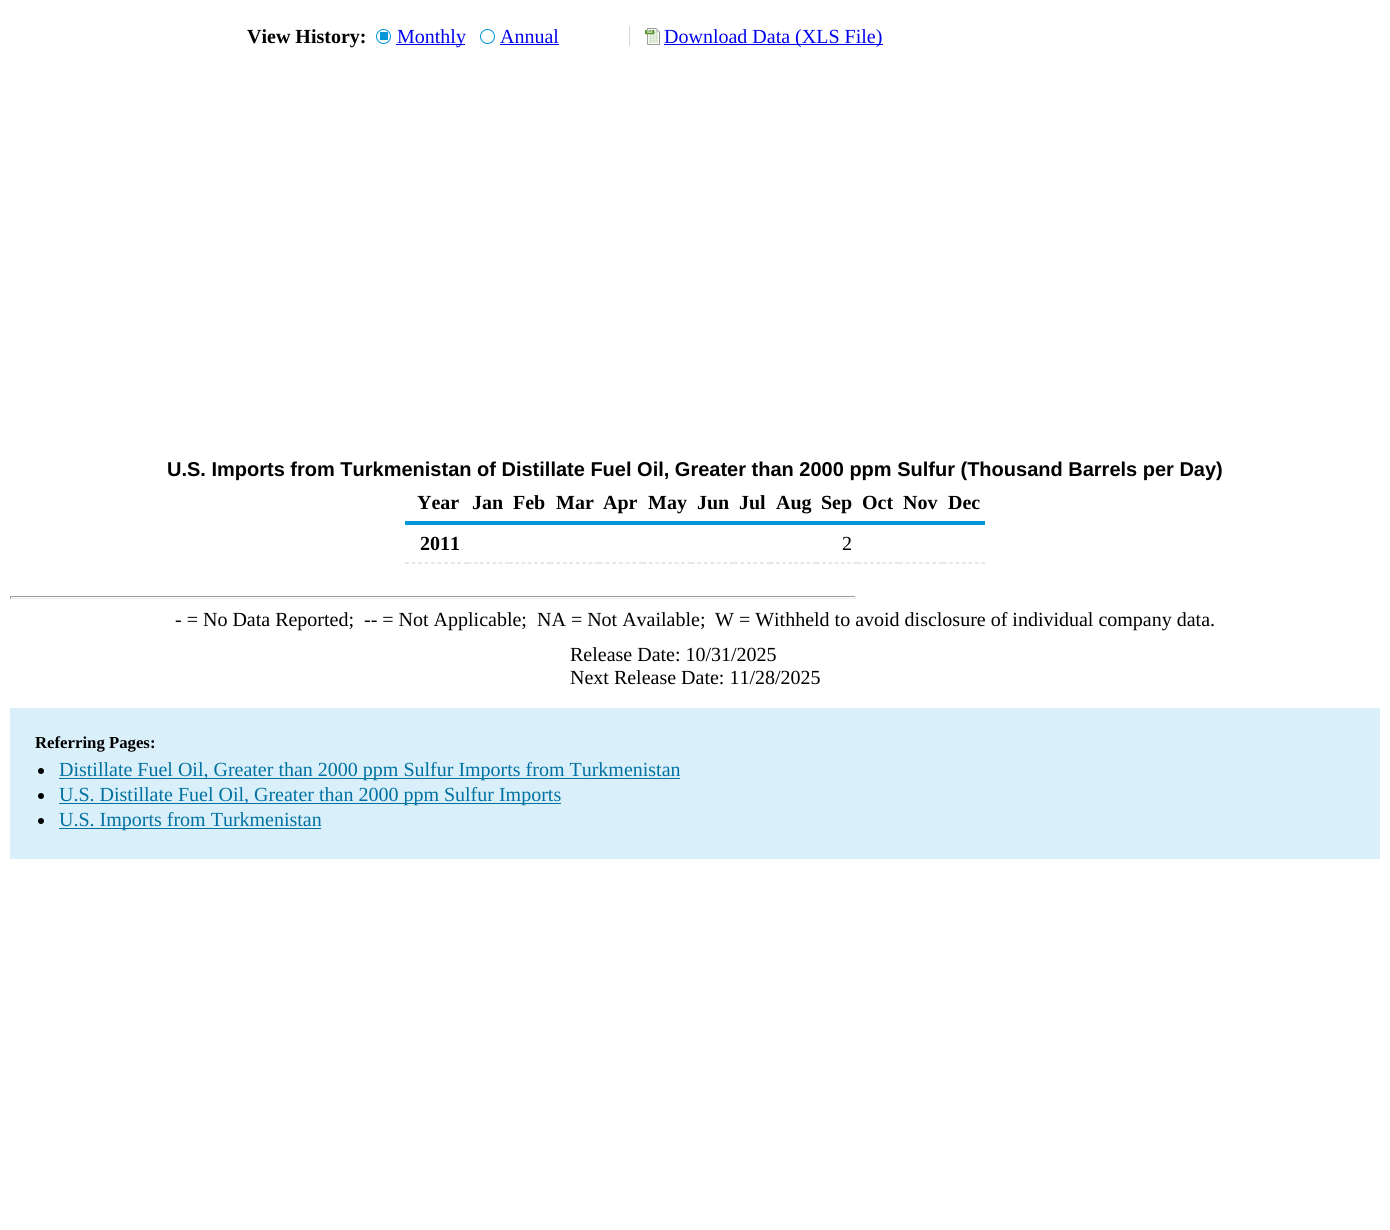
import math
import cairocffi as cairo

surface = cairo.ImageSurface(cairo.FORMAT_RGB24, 1390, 1230)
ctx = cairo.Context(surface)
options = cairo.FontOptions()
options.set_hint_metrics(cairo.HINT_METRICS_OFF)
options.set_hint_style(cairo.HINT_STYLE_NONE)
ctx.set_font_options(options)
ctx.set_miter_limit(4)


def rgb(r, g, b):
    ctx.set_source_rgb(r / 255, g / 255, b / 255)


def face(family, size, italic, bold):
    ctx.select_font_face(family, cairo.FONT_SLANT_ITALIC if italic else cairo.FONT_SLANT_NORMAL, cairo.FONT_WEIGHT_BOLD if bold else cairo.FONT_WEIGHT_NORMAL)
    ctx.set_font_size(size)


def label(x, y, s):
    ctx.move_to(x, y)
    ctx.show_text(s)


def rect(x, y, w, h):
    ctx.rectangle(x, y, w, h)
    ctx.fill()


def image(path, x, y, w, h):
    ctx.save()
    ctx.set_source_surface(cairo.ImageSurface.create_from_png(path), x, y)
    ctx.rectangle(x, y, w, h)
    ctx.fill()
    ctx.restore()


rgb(255, 255, 255)
ctx.paint()
face('Liberation Serif', 20, 0, 1)
rgb(0, 0, 0)
label(247, 43, 'View History:')
rgb(0, 150, 215)
rect(380, 32, 8, 8)
ctx.new_path()
ctx.arc(383.5, 36.5, 7, 0, 2 * math.pi)
ctx.set_line_width(1)
ctx.stroke()
rgb(0, 0, 238)
rect(396, 44, 69, 1)
face('Liberation Serif', 20, 0, 0)
label(397, 43, 'Monthly')
ctx.new_path()
ctx.arc(487.5, 36.5, 7, 0, 2 * math.pi)
rgb(0, 150, 215)
ctx.stroke()
rgb(0, 0, 238)
label(500, 43, 'Annual')
rect(500, 44, 59, 1)
rgb(215, 215, 215)
rect(629, 26, 1, 20)
image('image0.png', 644, 28, 16, 17)
rgb(0, 0, 238)
rect(664, 44, 219, 1)
label(664, 43, 'Download Data (XLS File)')
face('Liberation Sans', 20, 0, 1)
rgb(0, 0, 0)
label(167, 476, 'U.S. Imports from Turkmenistan of Distillate Fuel Oil, Greater than 2000 ppm Sulfur (Thousand Barrels per Day)')
rgb(0, 150, 215)
rect(405, 521, 580, 4)
face('Liberation Serif', 20, 0, 1)
rgb(0, 0, 0)
label(417, 509, 'Year')
label(472, 509, 'Jan')
label(513, 509, 'Feb')
label(556, 509, 'Mar')
label(603, 509, 'Apr')
label(648, 509, 'May')
label(697, 509, 'Jun')
label(739, 509, 'Jul')
label(776, 509, 'Aug')
label(821, 509, 'Sep')
label(862, 509, 'Oct')
label(903, 509, 'Nov')
label(948, 509, 'Dec')
ctx.new_path()
ctx.move_to(405, 563)
ctx.line_to(467.5, 563)
rgb(216, 216, 216)
ctx.set_line_width(1.2)
ctx.set_dash([3.75, 2.78])
ctx.stroke()
rgb(0, 0, 0)
label(420, 550, '2011')
ctx.new_path()
ctx.move_to(816, 563)
ctx.line_to(857.5, 563)
rgb(216, 216, 216)
ctx.set_dash([3.75, 2.5])
ctx.stroke()
face('Liberation Serif', 20, 0, 0)
rgb(0, 0, 0)
label(842, 550, '2')
ctx.new_path()
ctx.move_to(467.5, 563)
ctx.line_to(509, 563)
rgb(216, 216, 216)
ctx.stroke()
ctx.new_path()
ctx.move_to(509, 563)
ctx.line_to(550, 563)
ctx.stroke()
ctx.new_path()
ctx.move_to(550, 563)
ctx.line_to(599, 563)
ctx.set_dash([3.75, 2.68])
ctx.stroke()
ctx.new_path()
ctx.move_to(599, 563)
ctx.line_to(642.5, 563)
ctx.set_dash([3.75, 2.91])
ctx.stroke()
ctx.new_path()
ctx.move_to(642.5, 563)
ctx.line_to(691, 563)
ctx.set_dash([3.75, 2.68])
ctx.stroke()
ctx.new_path()
ctx.move_to(691, 563)
ctx.line_to(734, 563)
ctx.set_dash([3.75, 2.71])
ctx.stroke()
ctx.new_path()
ctx.move_to(734, 563)
ctx.line_to(770, 563)
ctx.set_dash([3.75, 2.75])
ctx.stroke()
ctx.new_path()
ctx.move_to(770, 563)
ctx.line_to(816, 563)
ctx.set_dash([3.75, 2.33])
ctx.stroke()
ctx.new_path()
ctx.move_to(857.5, 563)
ctx.line_to(899, 563)
ctx.set_dash([3.75, 2.5])
ctx.stroke()
ctx.new_path()
ctx.move_to(899, 563)
ctx.line_to(942.5, 563)
ctx.set_dash([3.75, 2.91])
ctx.stroke()
ctx.new_path()
ctx.move_to(942.5, 563)
ctx.line_to(985, 563)
ctx.set_dash([3.75, 2.71])
ctx.stroke()
rgb(159, 159, 159)
rect(10, 596, 846, 1)
rgb(238, 238, 238)
rect(855, 596, 1, 3)
rect(10, 598, 846, 1)
rgb(159, 159, 159)
rect(10, 596, 1, 3)
rgb(0, 0, 0)
label(175, 626, '- = No Data Reported;')
label(364, 626, '-- = Not Applicable;')
label(537, 626, 'NA = Not Available;')
label(715, 626, 'W = Withheld to avoid disclosure of individual company data.')
label(570, 661, 'Release Date: 10/31/2025')
label(570, 684, 'Next Release Date: 11/28/2025')
rgb(217, 239, 249)
rect(10, 708, 1370, 151)
face('Liberation Serif', 16.75, 0, 1)
rgb(0, 0, 0)
label(35, 748, 'Referring Pages:')
ctx.new_path()
ctx.arc(41, 771, 3, 0, 2 * math.pi)
ctx.fill()
rgb(0, 113, 161)
rect(59, 778, 621, 1)
face('Liberation Serif', 20, 0, 0)
label(59, 776, 'Distillate Fuel Oil, Greater than 2000 ppm Sulfur Imports from Turkmenistan')
rgb(0, 0, 0)
ctx.new_path()
ctx.arc(41, 796, 3, 0, 2 * math.pi)
ctx.fill()
rgb(0, 113, 161)
rect(59, 803, 502, 1)
label(59, 801, 'U.S. Distillate Fuel Oil, Greater than 2000 ppm Sulfur Imports')
rgb(0, 0, 0)
ctx.new_path()
ctx.arc(41, 821, 3, 0, 2 * math.pi)
ctx.fill()
rgb(0, 113, 161)
rect(59, 828, 262, 1)
label(59, 826, 'U.S. Imports from Turkmenistan')
surface.write_to_png('render.png')
